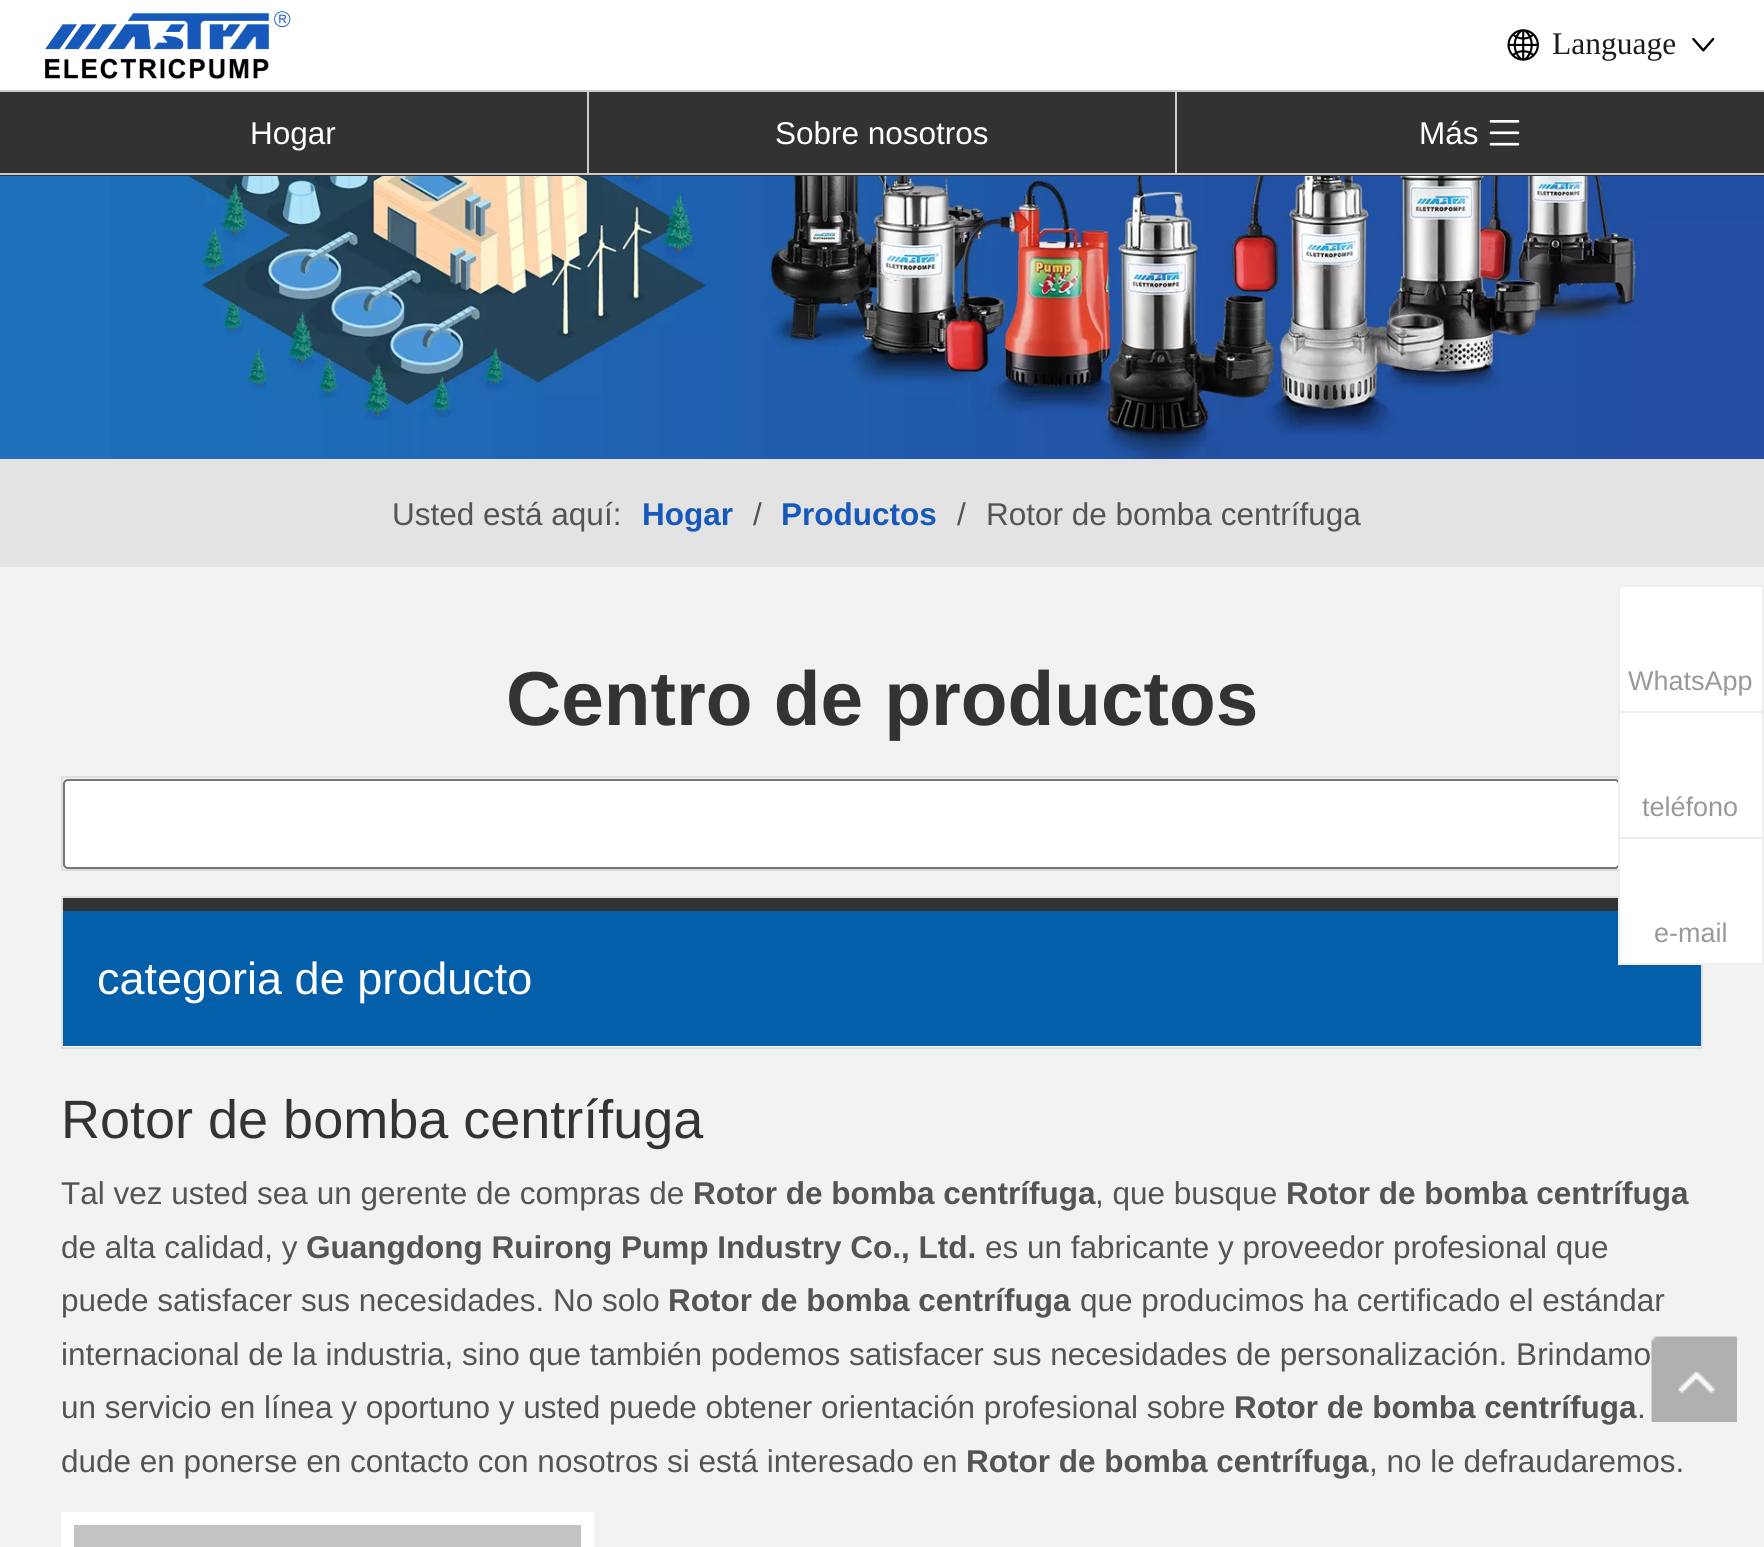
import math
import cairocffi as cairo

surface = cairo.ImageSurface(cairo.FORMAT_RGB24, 1764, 1547)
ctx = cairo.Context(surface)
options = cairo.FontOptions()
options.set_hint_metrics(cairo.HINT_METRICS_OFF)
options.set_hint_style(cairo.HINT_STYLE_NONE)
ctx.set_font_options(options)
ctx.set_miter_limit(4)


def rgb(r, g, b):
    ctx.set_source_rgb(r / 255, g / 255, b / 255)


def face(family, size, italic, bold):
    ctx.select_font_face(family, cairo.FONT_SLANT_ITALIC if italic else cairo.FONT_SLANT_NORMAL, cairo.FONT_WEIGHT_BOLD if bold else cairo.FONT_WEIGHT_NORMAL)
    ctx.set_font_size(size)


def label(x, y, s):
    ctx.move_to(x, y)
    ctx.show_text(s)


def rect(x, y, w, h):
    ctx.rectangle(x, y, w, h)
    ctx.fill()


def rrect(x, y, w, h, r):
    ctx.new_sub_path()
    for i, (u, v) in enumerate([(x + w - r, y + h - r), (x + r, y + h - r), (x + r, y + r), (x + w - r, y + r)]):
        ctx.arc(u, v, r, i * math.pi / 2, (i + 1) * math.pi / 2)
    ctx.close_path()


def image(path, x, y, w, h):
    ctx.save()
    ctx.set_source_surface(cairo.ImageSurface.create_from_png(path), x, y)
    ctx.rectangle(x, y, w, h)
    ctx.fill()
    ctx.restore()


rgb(242, 242, 242)
ctx.paint()
rgb(255, 255, 255)
rect(0, 0, 1764, 90)
image('image0.png', 45, 11, 246, 68)
image('image1.png', 1507, 29, 32, 32)
face('Liberation Serif', 31.5, 0, 0)
rgb(28, 28, 28)
label(1552, 54, 'Language')
image('image2.png', 1692, 37, 23, 15)
rgb(50, 50, 50)
rect(0, 92, 1764, 84)
rgb(204, 204, 204)
rect(0, 90, 1764, 2)
rect(0, 173, 1764, 2)
rect(587, 92, 2, 81)
face('Liberation Sans', 31.5, 0, 0)
rgb(255, 255, 255)
label(250, 144, 'Hogar')
rgb(204, 204, 204)
rect(1175, 92, 2, 81)
rgb(255, 255, 255)
label(775, 144, 'Sobre nosotros')
label(1419, 144, 'Más')
image('image3.png', 1489, 120, 31, 26)
image('image4.png', 0, 176, 1764, 283)
rgb(227, 227, 227)
rect(0, 459, 1764, 108)
rgb(84, 84, 84)
label(392, 525, 'Usted está aquí:')
face('Liberation Sans', 31.5, 0, 1)
rgb(23, 88, 188)
label(642, 525, 'Hogar')
face('Liberation Sans', 31.5, 0, 0)
rgb(84, 84, 84)
label(753, 525, '/')
face('Liberation Sans', 31.5, 0, 1)
rgb(23, 88, 188)
label(781, 525, 'Productos')
face('Liberation Sans', 31.5, 0, 0)
rgb(84, 84, 84)
label(957, 525, '/')
label(986, 525, 'Rotor de bomba centrífuga')
face('Liberation Sans', 76.5, 0, 1)
rgb(51, 51, 51)
label(506, 725, 'Centro de productos')
ctx.rectangle(62, 777, 1640, 93)
rgb(221, 221, 221)
ctx.stroke()
rgb(255, 255, 255)
rrect(64, 780, 1555, 88, 4)
ctx.fill_preserve()
rgb(118, 118, 118)
ctx.stroke()
rgb(255, 255, 255)
rect(63, 1046, 1638, 1)
ctx.rectangle(62, 897, 1640, 151)
rgb(223, 223, 223)
ctx.stroke()
rgb(4, 95, 171)
rect(63, 911, 1638, 135)
rgb(51, 51, 51)
rect(63, 898, 1555, 13)
face('Liberation Sans', 45, 0, 0)
rgb(255, 255, 255)
label(97, 994, 'categoria de producto')
face('Liberation Sans', 54, 0, 0)
rgb(51, 51, 51)
label(61, 1138, 'Rotor de bomba centrífuga')
face('Liberation Sans', 31.5, 0, 0)
rgb(84, 84, 84)
label(61, 1204, 'Tal vez usted sea un gerente de compras de')
face('Liberation Sans', 31.5, 0, 1)
label(693, 1204, 'Rotor de bomba centrífuga')
face('Liberation Sans', 31.5, 0, 0)
label(1095, 1204, ', que busque')
face('Liberation Sans', 31.5, 0, 1)
label(1286, 1204, 'Rotor de bomba centrífuga')
face('Liberation Sans', 31.5, 0, 0)
label(61, 1258, 'de alta calidad, y')
face('Liberation Sans', 31.5, 0, 1)
label(306, 1258, 'Guangdong Ruirong Pump Industry Co., Ltd.')
face('Liberation Sans', 31.5, 0, 0)
label(985, 1258, 'es un fabricante y proveedor profesional que')
label(61, 1311, 'puede satisfacer sus necesidades. No solo')
face('Liberation Sans', 31.5, 0, 1)
label(668, 1311, 'Rotor de bomba centrífuga')
face('Liberation Sans', 31.5, 0, 0)
label(1080, 1311, 'que producimos ha certificado el estándar')
label(61, 1365, 'internacional de la industria, sino que también podemos satisfacer sus necesidades de personalización. Brindamo')
label(61, 1418, 'un servicio en línea y oportuno y usted puede obtener orientación profesional sobre')
face('Liberation Sans', 31.5, 0, 1)
label(1234, 1418, 'Rotor de bomba centrífuga')
face('Liberation Sans', 31.5, 0, 0)
label(1637, 1418, '.')
label(61, 1472, 'dude en ponerse en contacto con nosotros si está interesado en')
face('Liberation Sans', 31.5, 0, 1)
label(966, 1472, 'Rotor de bomba centrífuga')
face('Liberation Sans', 31.5, 0, 0)
label(1369, 1472, ', no le defraudaremos.')
rgb(255, 255, 255)
rect(61, 1512, 533, 35)
rgb(195, 195, 195)
rect(74, 1525, 507, 22)
rgb(255, 255, 255)
rect(1620, 587, 142, 124)
rgb(238, 238, 238)
rect(1618, 585, 146, 2)
rect(1762, 585, 2, 126)
rect(1618, 585, 2, 126)
face('Liberation Sans', 27, 0, 0)
rgb(153, 153, 153)
label(1628, 690, 'WhatsApp')
rgb(255, 255, 255)
rect(1620, 713, 142, 124)
rgb(238, 238, 238)
rect(1618, 711, 146, 2)
rect(1762, 711, 2, 126)
rect(1618, 711, 2, 126)
rgb(153, 153, 153)
label(1642, 816, 'teléfono')
rgb(255, 255, 255)
ctx.rectangle(1619, 838, 144, 126)
ctx.fill_preserve()
rgb(238, 238, 238)
ctx.stroke()
rgb(153, 153, 153)
label(1654, 942, 'e-mail')
image('image5.png', 1651, 1336, 86, 86)
surface.write_to_png('render.png')
